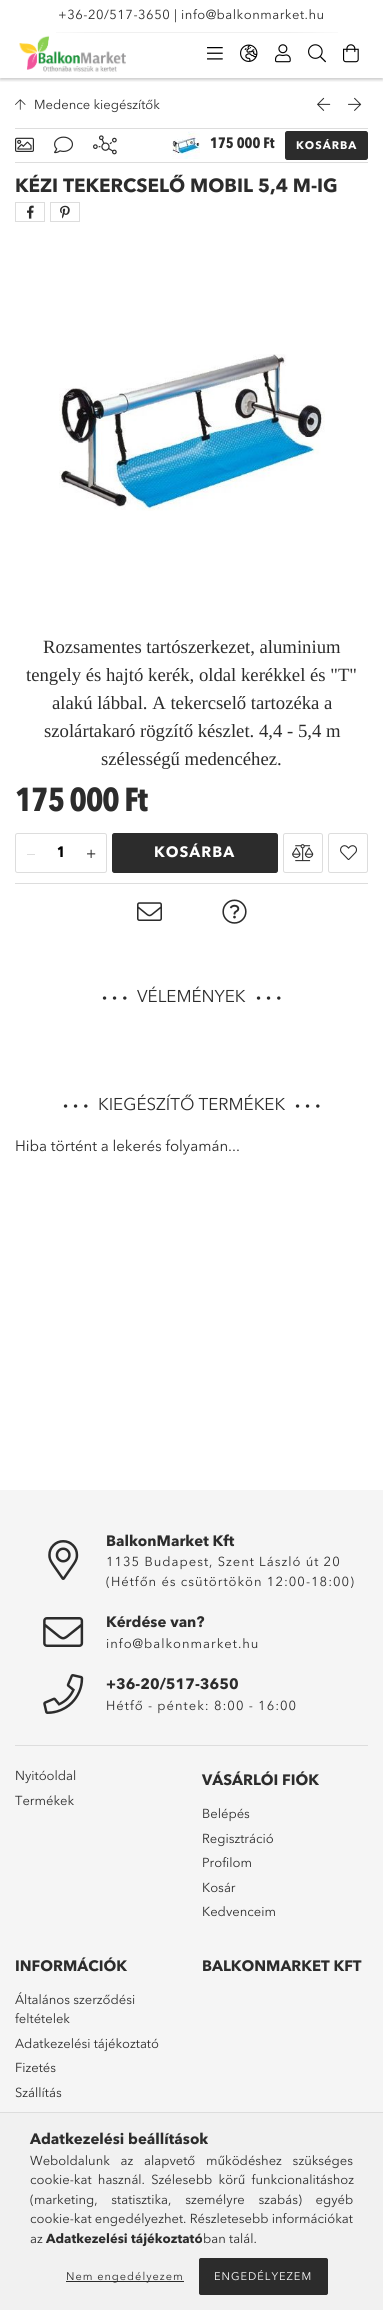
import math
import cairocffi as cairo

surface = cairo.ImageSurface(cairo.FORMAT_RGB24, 383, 2310)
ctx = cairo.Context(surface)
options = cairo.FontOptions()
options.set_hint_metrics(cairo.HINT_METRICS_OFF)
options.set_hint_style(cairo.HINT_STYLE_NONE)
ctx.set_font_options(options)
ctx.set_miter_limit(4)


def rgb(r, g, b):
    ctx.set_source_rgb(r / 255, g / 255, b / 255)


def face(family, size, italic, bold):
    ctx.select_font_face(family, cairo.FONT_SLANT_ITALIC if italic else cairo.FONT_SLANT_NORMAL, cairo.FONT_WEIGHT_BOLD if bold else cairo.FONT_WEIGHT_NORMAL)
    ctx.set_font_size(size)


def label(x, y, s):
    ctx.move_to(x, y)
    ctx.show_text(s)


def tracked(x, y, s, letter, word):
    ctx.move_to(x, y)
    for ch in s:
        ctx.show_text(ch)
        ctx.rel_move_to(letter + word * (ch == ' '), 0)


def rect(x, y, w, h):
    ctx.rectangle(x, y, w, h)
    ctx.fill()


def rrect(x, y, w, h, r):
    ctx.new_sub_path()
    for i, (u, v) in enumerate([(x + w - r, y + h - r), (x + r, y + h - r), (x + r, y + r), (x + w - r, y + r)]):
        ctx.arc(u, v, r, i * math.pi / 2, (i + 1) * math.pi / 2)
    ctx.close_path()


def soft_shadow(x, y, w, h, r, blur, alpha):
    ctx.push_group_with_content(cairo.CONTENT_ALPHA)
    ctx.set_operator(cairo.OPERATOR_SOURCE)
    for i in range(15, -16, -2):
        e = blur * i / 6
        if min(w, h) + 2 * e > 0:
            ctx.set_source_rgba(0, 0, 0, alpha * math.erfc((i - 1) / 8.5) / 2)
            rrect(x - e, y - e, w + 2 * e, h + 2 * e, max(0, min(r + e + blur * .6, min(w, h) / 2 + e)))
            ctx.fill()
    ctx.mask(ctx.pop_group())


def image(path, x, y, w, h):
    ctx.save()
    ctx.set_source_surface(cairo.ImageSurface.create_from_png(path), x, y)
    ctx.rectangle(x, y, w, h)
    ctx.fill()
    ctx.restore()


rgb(255, 255, 255)
ctx.paint()
ctx.save()
ctx.rectangle(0, 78, 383, 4)
ctx.clip()
rgb(0, 0, 0)
soft_shadow(0, 2, 383, 78, 0, 1.5, 0.2)
ctx.restore()
face('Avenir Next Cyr', 13, 0, 0)
rgb(44, 44, 44)
tracked(58, 19, '+36-20/517-3650 | info@balkonmarket.hu', 0.5, 0)
image('image0.png', 56, 32, 282, 1)
image('image1.png', 19, 35, 107, 37)
image('image2.png', 207, 47, 16, 13)
image('image3.png', 240, 44, 18, 18)
image('image4.png', 275, 44, 16, 19)
image('image5.png', 308, 44, 18, 19)
image('image6.png', 343, 44, 16, 19)
image('image7.png', 15, 99, 11, 11)
label(34, 109, 'Medence kiegészítők')
image('image8.png', 317, 97, 14, 14)
image('image9.png', 348, 97, 14, 14)
rgb(221, 221, 221)
rect(15, 128, 353, 1)
rect(15, 162, 353, 1)
image('image10.png', 15, 137, 19, 15)
image('image11.png', 54, 136, 19, 18)
image('image12.png', 93, 135, 24, 20)
image('image13.png', 172, 131, 28, 28)
face('Avenir Next', 15, 0, 1)
rgb(44, 44, 44)
label(210, 148, '175 000 Ft')
rrect(285.5, 131.5, 82, 28, 2)
ctx.fill_preserve()
ctx.set_line_width(1)
ctx.stroke()
face('Avenir Next Cyr', 11, 0, 1)
rgb(255, 255, 255)
tracked(296, 149, 'KOSÁRBA', 1, 0)
face('Avenir Next Cyr', 19, 0, 1)
rgb(44, 44, 44)
label(15, 192, 'KÉZI TEKERCSELŐ MOBIL 5,4 M-IG')
ctx.rectangle(15.5, 202.5, 29, 19)
rgb(221, 221, 221)
ctx.stroke()
image('image14.png', 27, 205, 7, 14)
ctx.rectangle(50.5, 202.5, 29, 19)
ctx.stroke()
image('image15.png', 60, 205, 10, 14)
image('image16.png', 59, 354, 266, 157)
face('Liberation Serif', 18.7, 0, 0)
rgb(44, 44, 44)
label(43, 653, 'Rozsamentes tartószerkezet, aluminium')
label(26, 681, 'tengely és hajtó kerék, oldal kerékkel és "T"')
label(52, 709, 'alakú lábbal. A tekercselő tartozéka a')
label(44, 737, 'szolártakaró rögzítő készlet. 4,4 - 5,4 m')
label(101, 765, 'szélességű medencéhez.')
face('Avenir Next', 33, 0, 1)
tracked(15, 811, '175 000 Ft', -1, 0)
rrect(15.5, 833.5, 91, 39, 2)
rgb(221, 221, 221)
ctx.stroke()
rect(27, 854, 8, 1)
face('Avenir Next', 15, 0, 1)
rgb(0, 0, 0)
label(57, 857, '1')
image('image17.png', 87, 849, 9, 9)
rgb(44, 44, 44)
rrect(112.5, 833.5, 165, 39, 2)
ctx.fill_preserve()
ctx.stroke()
face('Avenir Next Cyr', 15, 0, 1)
rgb(255, 255, 255)
tracked(154, 857, 'KOSÁRBA', 1, 0)
rrect(283.5, 833.5, 39, 39, 2)
rgb(221, 221, 221)
ctx.stroke()
image('image18.png', 292, 844, 22, 18)
rrect(328.5, 833.5, 39, 39, 2)
ctx.stroke()
image('image19.png', 340, 845, 17, 15)
rect(15, 883, 353, 1)
image('image20.png', 137, 902, 25, 19)
image('image21.png', 222, 899, 25, 25)
face('Avenir Next Cyr', 17, 0, 1)
rgb(44, 44, 44)
tracked(102, 1003, '∙∙∙', 5, 0)
face('Avenir Next Cyr', 17, 0, 0)
label(137, 1002, 'VÉLEMÉNYEK')
face('Avenir Next Cyr', 17, 0, 1)
tracked(256, 1003, '∙∙∙', 5, 0)
tracked(63, 1111, '∙∙∙', 5, 0)
face('Avenir Next Cyr', 17, 0, 0)
label(98, 1110, 'KIEGÉSZÍTŐ TERMÉKEK')
face('Avenir Next Cyr', 17, 0, 1)
tracked(295, 1111, '∙∙∙', 5, 0)
face('Avenir Next Cyr', 15, 0, 0)
label(15, 1151, 'Hiba történt a lekerés folyamán...')
rgb(245, 245, 245)
rect(0, 1490, 383, 622)
image('image22.png', 48, 1540, 31, 40)
face('Avenir Next Cyr', 15, 0, 1)
rgb(44, 44, 44)
label(106, 1546, 'BalkonMarket Kft')
face('Avenir Next Cyr', 13, 0, 0)
tracked(106, 1566, '1135 Budapest, Szent László út 20', 1, 0)
tracked(106, 1586, '(Hétfőn és csütörtökön 12:00-18:00)', 1, 0)
image('image23.png', 43, 1617, 41, 30)
face('Avenir Next Cyr', 15, 0, 1)
label(106, 1627, 'Kérdése van?')
face('Avenir Next Cyr', 13, 0, 0)
tracked(106, 1648, 'info@balkonmarket.hu', 1, 0)
image('image24.png', 43, 1674, 41, 40)
face('Avenir Next Cyr', 15, 0, 1)
label(106, 1689, '+36-20/517-3650')
face('Avenir Next Cyr', 13, 0, 0)
tracked(106, 1710, 'Hétfő - péntek: 8:00 - 16:00', 1, 0)
rgb(221, 221, 221)
rect(15, 1745, 353, 1)
rgb(44, 44, 44)
label(15, 1780, 'Nyitóoldal')
label(15, 1805, 'Termékek')
face('Avenir Next Cyr', 15, 0, 1)
label(202, 1785, 'VÁSÁRLÓI FIÓK')
face('Avenir Next Cyr', 13, 0, 0)
label(202, 1818, 'Belépés')
label(202, 1843, 'Regisztráció')
label(202, 1867, 'Profilom')
label(202, 1892, 'Kosár')
label(202, 1916, 'Kedvenceim')
face('Avenir Next Cyr', 15, 0, 1)
label(15, 1971, 'INFORMÁCIÓK')
face('Avenir Next Cyr', 13, 0, 0)
label(15, 2004, 'Általános szerződési')
label(15, 2023, 'feltételek')
label(15, 2048, 'Adatkezelési tájékoztató')
label(15, 2072, 'Fizetés')
label(15, 2097, 'Szállítás')
face('Avenir Next Cyr', 15, 0, 1)
label(202, 1971, 'BALKONMARKET KFT')
rgb(241, 241, 241)
rect(0, 2113, 383, 197)
rgb(221, 221, 221)
rect(0, 2112, 383, 1)
rgb(44, 44, 44)
label(30, 2144, 'Adatkezelési beállítások')
face('Avenir Next Cyr', 13, 0, 0)
tracked(30, 2165, 'Weboldalunk az alapvető működéshez szükséges', 0, 7.5)
tracked(30, 2184, 'cookie-kat használ. Szélesebb körű funkcionalitáshoz', 0, 3)
tracked(30, 2204, '(marketing, statisztika, személyre szabás) egyéb', 0, 10.5)
label(30, 2223, 'cookie-kat engedélyezhet. Részletesebb információkat')
label(30, 2243, 'az')
face('Avenir Next Cyr', 13, 0, 1)
label(46, 2243, 'Adatkezelési tájékoztató')
face('Avenir Next Cyr', 13, 0, 0)
label(203, 2243, 'ban talál.')
rect(66, 2281, 118, 1)
face('Avenir Next Cyr', 11, 0, 0)
tracked(66, 2280, 'Nem engedélyezem', 1, 0)
rrect(199.5, 2258.5, 128, 36, 1.5)
ctx.fill_preserve()
ctx.stroke()
rgb(255, 255, 255)
tracked(214, 2280, 'ENGEDÉLYEZEM', 1, 0)
surface.write_to_png('render.png')
